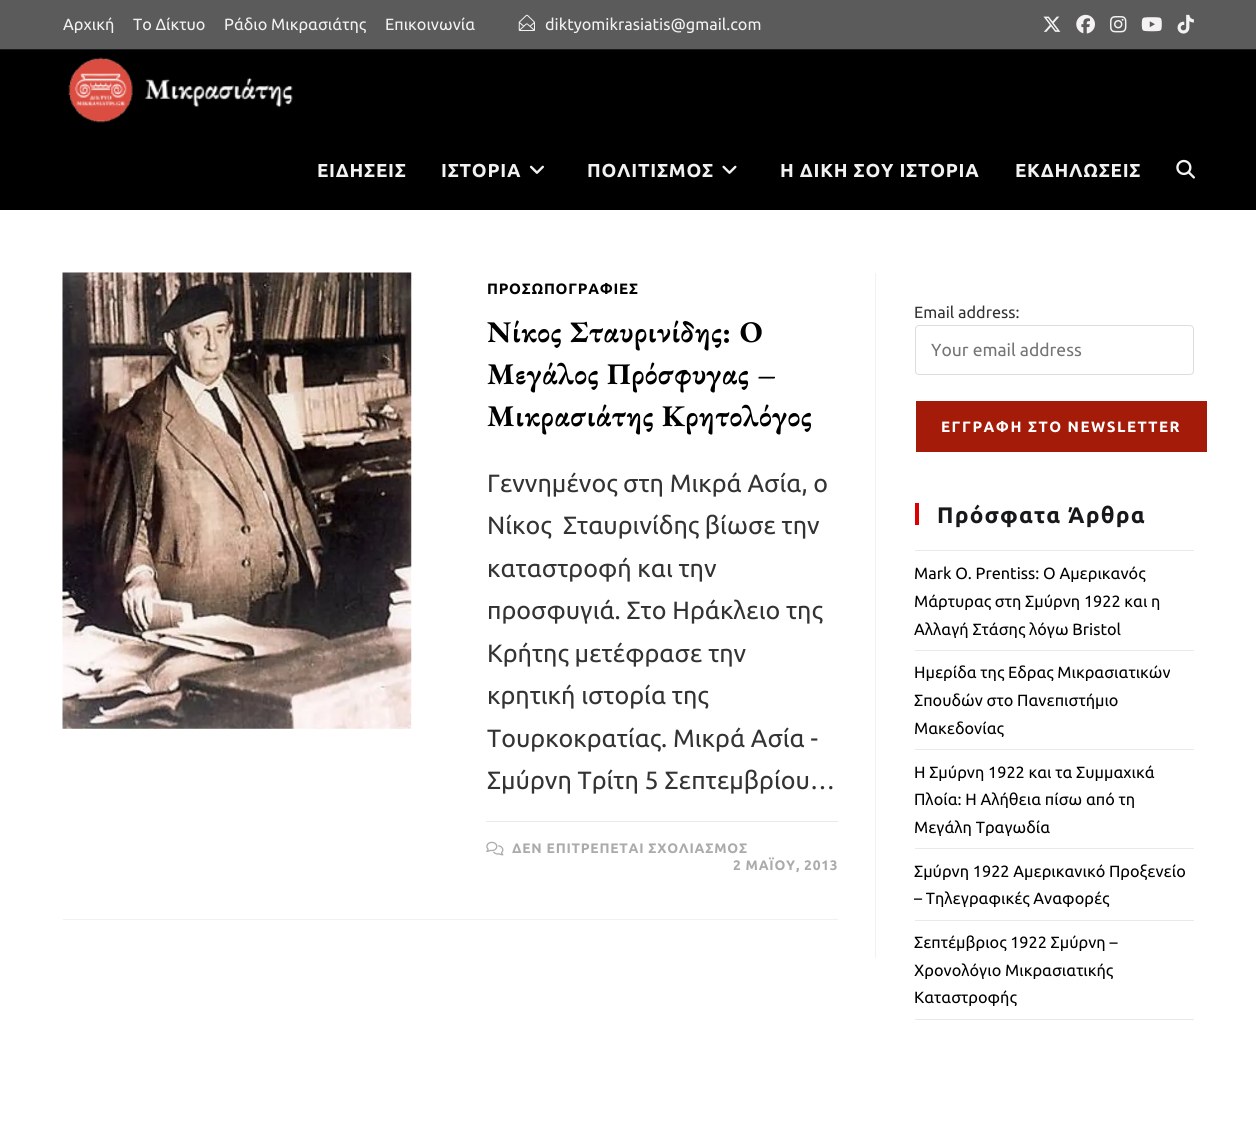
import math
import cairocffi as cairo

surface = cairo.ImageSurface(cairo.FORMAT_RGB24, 1256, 1139)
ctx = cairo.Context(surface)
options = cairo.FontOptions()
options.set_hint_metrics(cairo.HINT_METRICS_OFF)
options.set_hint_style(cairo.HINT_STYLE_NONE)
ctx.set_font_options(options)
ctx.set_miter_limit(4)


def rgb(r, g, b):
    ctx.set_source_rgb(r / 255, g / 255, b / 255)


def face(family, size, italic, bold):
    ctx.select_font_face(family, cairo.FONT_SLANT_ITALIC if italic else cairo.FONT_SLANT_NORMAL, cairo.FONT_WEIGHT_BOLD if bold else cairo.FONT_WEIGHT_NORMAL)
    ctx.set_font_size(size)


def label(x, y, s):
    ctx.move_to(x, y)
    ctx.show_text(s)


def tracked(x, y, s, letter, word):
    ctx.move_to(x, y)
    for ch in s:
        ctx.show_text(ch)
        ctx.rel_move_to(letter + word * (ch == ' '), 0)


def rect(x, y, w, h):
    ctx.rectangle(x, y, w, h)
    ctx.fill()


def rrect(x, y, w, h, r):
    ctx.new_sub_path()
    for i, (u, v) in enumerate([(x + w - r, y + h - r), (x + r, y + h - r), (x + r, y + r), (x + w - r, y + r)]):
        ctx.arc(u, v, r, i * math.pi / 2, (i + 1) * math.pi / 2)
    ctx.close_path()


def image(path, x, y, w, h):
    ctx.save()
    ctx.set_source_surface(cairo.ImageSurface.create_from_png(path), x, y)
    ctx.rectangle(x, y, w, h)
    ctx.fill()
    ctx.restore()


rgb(255, 255, 255)
ctx.paint()
rgb(91, 91, 91)
rect(0, 0, 1256, 49)
rgb(22, 24, 25)
rect(0, 49, 1256, 1)
face('Ubuntu', 16.25, 0, 0)
rgb(242, 242, 242)
label(63, 30, 'Αρχική')
label(133, 30, 'Το Δίκτυο')
label(224, 30, 'Ράδιο Μικρασιάτης')
label(385, 30, 'Επικοινωνία')
image('image0.png', 518, 14, 17, 17)
label(545, 30, 'diktyomikrasiatis@gmail.com')
image('image1.png', 1043, 16, 18, 16)
image('image2.png', 1076, 14, 19, 20)
image('image3.png', 1110, 16, 17, 17)
image('image4.png', 1141, 17, 21, 15)
image('image5.png', 1177, 14, 17, 20)
rgb(0, 0, 0)
rect(0, 50, 1256, 160)
image('image6.png', 68, 57, 225, 66)
face('Ubuntu', 18.75, 0, 1)
rgb(242, 242, 242)
tracked(317, 177, 'ΕΙΔΗΣΕΙΣ', 0.75, 0)
tracked(441, 177, 'ΙΣΤΟΡΙΑ', 0.75, 0)
image('image7.png', 529, 165, 15, 9)
tracked(587, 177, 'ΠΟΛΙΤΙΣΜΟΣ', 0.75, 0)
image('image8.png', 722, 165, 15, 9)
tracked(780, 177, 'Η ΔΙΚΗ ΣΟΥ ΙΣΤΟΡΙΑ', 0.75, 0)
tracked(1015, 177, 'ΕΚΔΗΛΩΣΕΙΣ', 0.75, 0)
image('image9.png', 1176, 159, 19, 20)
rgb(241, 241, 241)
rect(875, 273, 1, 685)
rect(63, 919, 775, 1)
image('image10.png', 62, 272, 350, 457)
face('Ubuntu', 15, 0, 1)
rgb(0, 0, 0)
tracked(487, 294, 'ΠΡΟΣΩΠΟΓΡΑΦΙΕΣ', 0.75, 0)
face('EB Garamond', 30, 0, 1)
tracked(487, 342, 'Νίκος Σταυρινίδης: Ο', 0.75, 0)
tracked(487, 384, 'Μεγάλος Πρόσφυγας –', 0.75, 0)
tracked(487, 426, 'Μικρασιάτης Κρητολόγος', 0.75, 0)
face('Ubuntu', 25, 0, 0)
rgb(51, 51, 51)
label(487, 492, 'Γεννημένος στη Μικρά Ασία, ο')
label(487, 534, 'Νίκος  Σταυρινίδης βίωσε την')
label(487, 577, 'καταστροφή και την')
label(487, 619, 'προσφυγιά. Στο Ηράκλειο της')
label(487, 662, 'Κρήτης μετέφρασε την')
label(487, 704, 'κρητική ιστορία της')
label(487, 747, 'Τουρκοκρατίας. Μικρά Ασία -')
label(487, 789, 'Σμύρνη Τρίτη 5 Σεπτεμβρίου…')
rgb(233, 233, 233)
rect(486, 821, 352, 1)
image('image11.png', 486, 841, 18, 15)
face('Ubuntu', 13.75, 0, 1)
rgb(171, 171, 171)
tracked(512, 853, 'ΔΕΝ ΕΠΙΤΡΕΠΕΤΑΙ ΣΧΟΛΙΑΣΜΟΣ', 0.75, 0)
tracked(733, 870, '2 ΜΑΪΟΥ, 2013', 0.75, 0)
face('Ubuntu', 16.25, 0, 0)
rgb(51, 51, 51)
label(914, 318, 'Email address:')
rrect(915.5, 325.5, 278, 49, 3.5)
rgb(221, 221, 221)
ctx.set_line_width(1)
ctx.stroke()
face('Ubuntu', 17.5, 0, 0)
rgb(117, 117, 117)
label(931, 356, 'Your email address')
rgb(165, 27, 9)
rect(916, 401, 291, 51)
face('Ubuntu', 15, 0, 1)
rgb(255, 255, 255)
tracked(941, 432, 'ΕΓΓΡΑΦΗ ΣΤΟ NEWSLETTER', 1.5, 0)
rgb(221, 0, 0)
rect(915, 503, 4, 22)
face('Ubuntu', 22.5, 0, 1)
rgb(22, 24, 25)
tracked(937, 523, 'Πρόσφατα Άρθρα', 1.25, 0)
rgb(233, 233, 233)
rect(915, 550, 279, 1)
rect(915, 650, 279, 1)
face('Ubuntu', 16.25, 0, 0)
rgb(0, 0, 0)
label(914, 579, 'Mark O. Prentiss: Ο Αμερικανός')
label(914, 607, 'Μάρτυρας στη Σμύρνη 1922 και η')
label(914, 635, 'Αλλαγή Στάσης λόγω Bristol')
rgb(233, 233, 233)
rect(915, 749, 279, 1)
rgb(0, 0, 0)
label(914, 678, 'Ημερίδα της Εδρας Μικρασιατικών')
label(914, 706, 'Σπουδών στο Πανεπιστήμιο')
label(914, 734, 'Μακεδονίας')
rgb(233, 233, 233)
rect(915, 848, 279, 1)
rgb(0, 0, 0)
label(914, 778, 'Η Σμύρνη 1922 και τα Συμμαχικά')
label(914, 805, 'Πλοία: Η Αλήθεια πίσω από τη')
label(914, 833, 'Μεγάλη Τραγωδία')
rgb(233, 233, 233)
rect(915, 920, 279, 1)
rgb(0, 0, 0)
label(914, 877, 'Σμύρνη 1922 Αμερικανικό Προξενείο')
label(914, 904, '– Τηλεγραφικές Αναφορές')
rgb(233, 233, 233)
rect(915, 1019, 279, 1)
rgb(0, 0, 0)
label(914, 948, 'Σεπτέμβριος 1922 Σμύρνη –')
label(914, 976, 'Χρονολόγιο Μικρασιατικής')
label(914, 1003, 'Καταστροφής')
surface.write_to_png('render.png')
